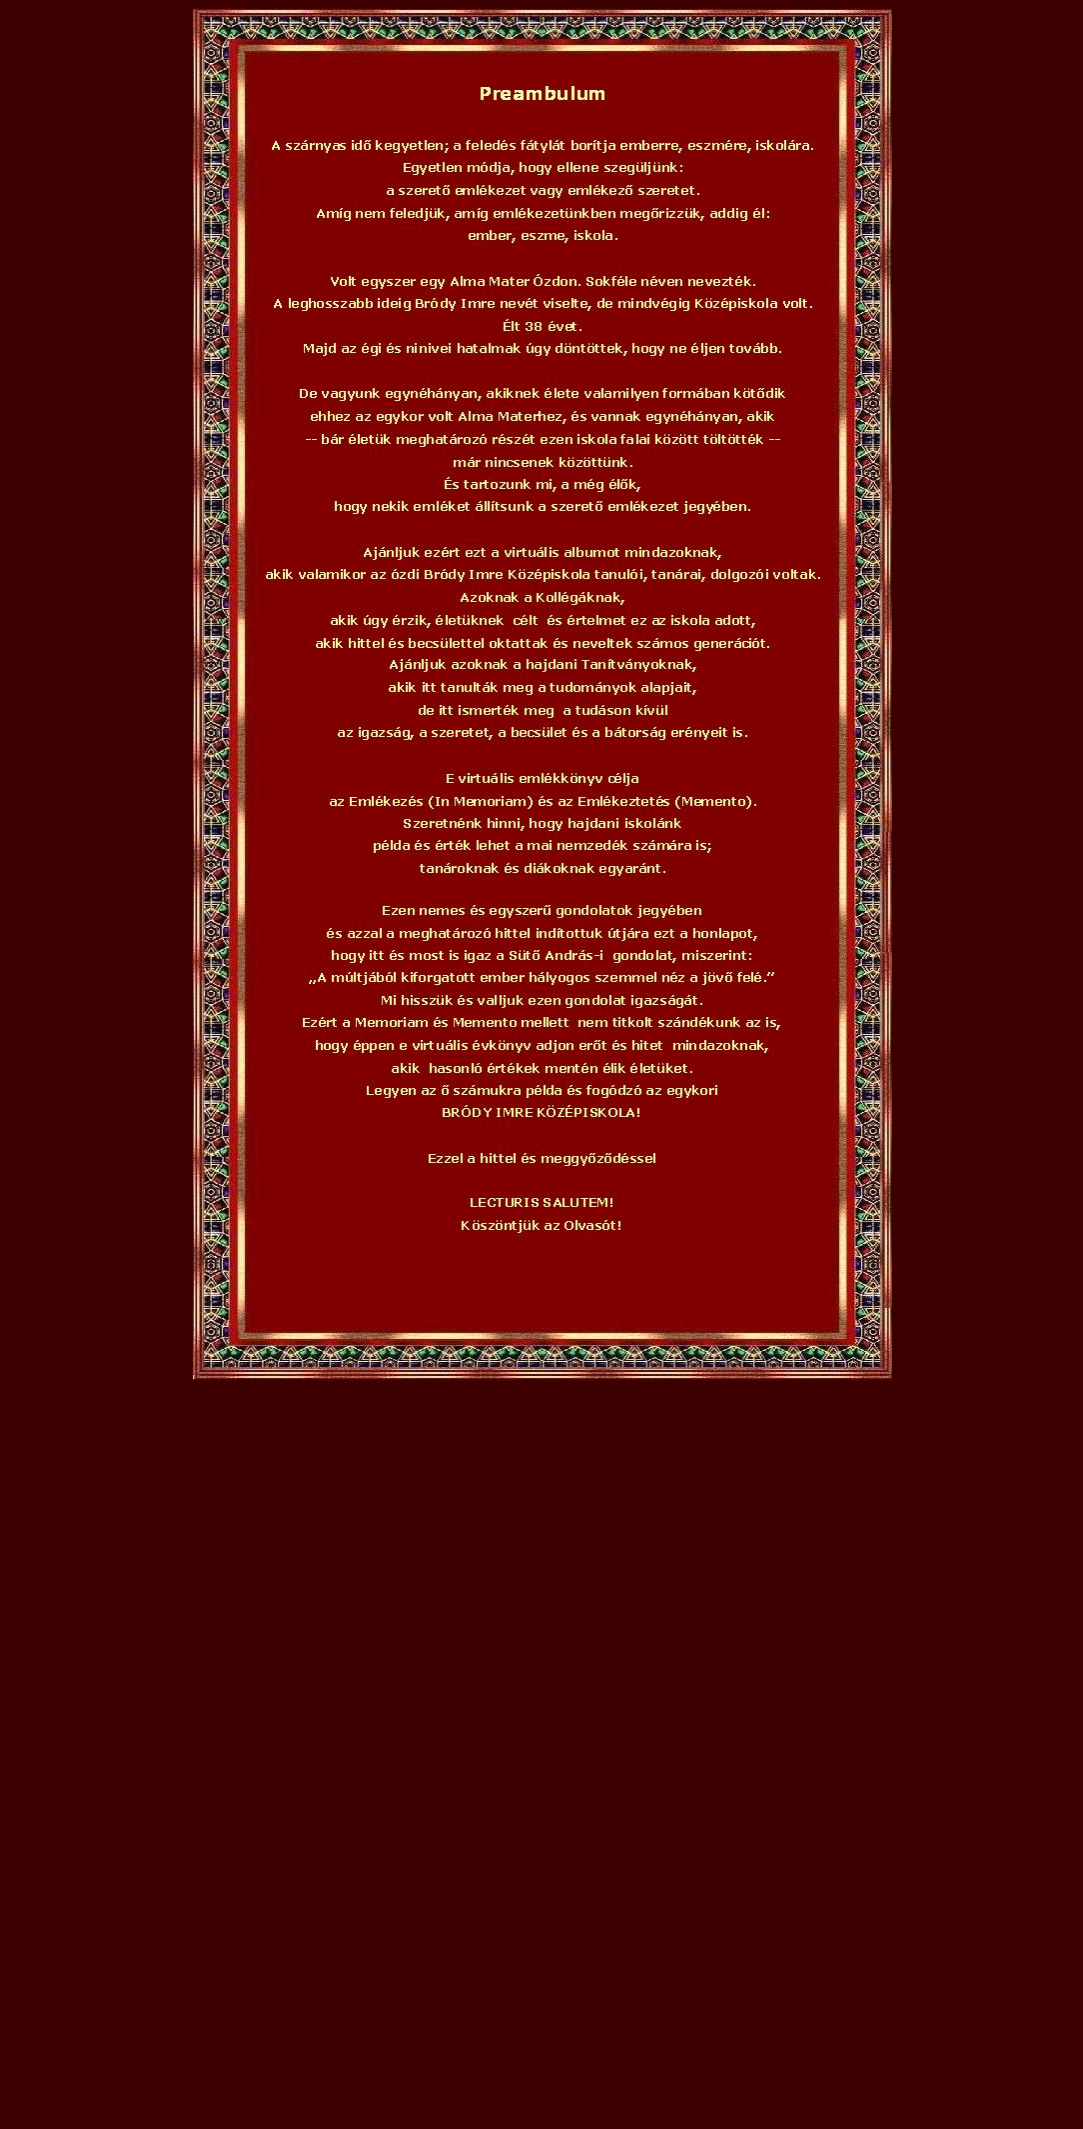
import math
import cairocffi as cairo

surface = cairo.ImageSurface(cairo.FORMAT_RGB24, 1083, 2129)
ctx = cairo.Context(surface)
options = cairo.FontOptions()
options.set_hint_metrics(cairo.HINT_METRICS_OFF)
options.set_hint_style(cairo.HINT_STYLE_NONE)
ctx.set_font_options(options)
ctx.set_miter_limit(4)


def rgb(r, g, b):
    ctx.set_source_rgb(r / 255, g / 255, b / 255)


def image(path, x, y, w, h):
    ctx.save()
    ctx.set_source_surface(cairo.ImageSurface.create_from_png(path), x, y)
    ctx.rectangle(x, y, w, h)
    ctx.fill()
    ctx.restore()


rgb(60, 0, 0)
ctx.paint()
image('image0.png', 192, 8, 700, 1373)
surface.write_to_png('render.png')
